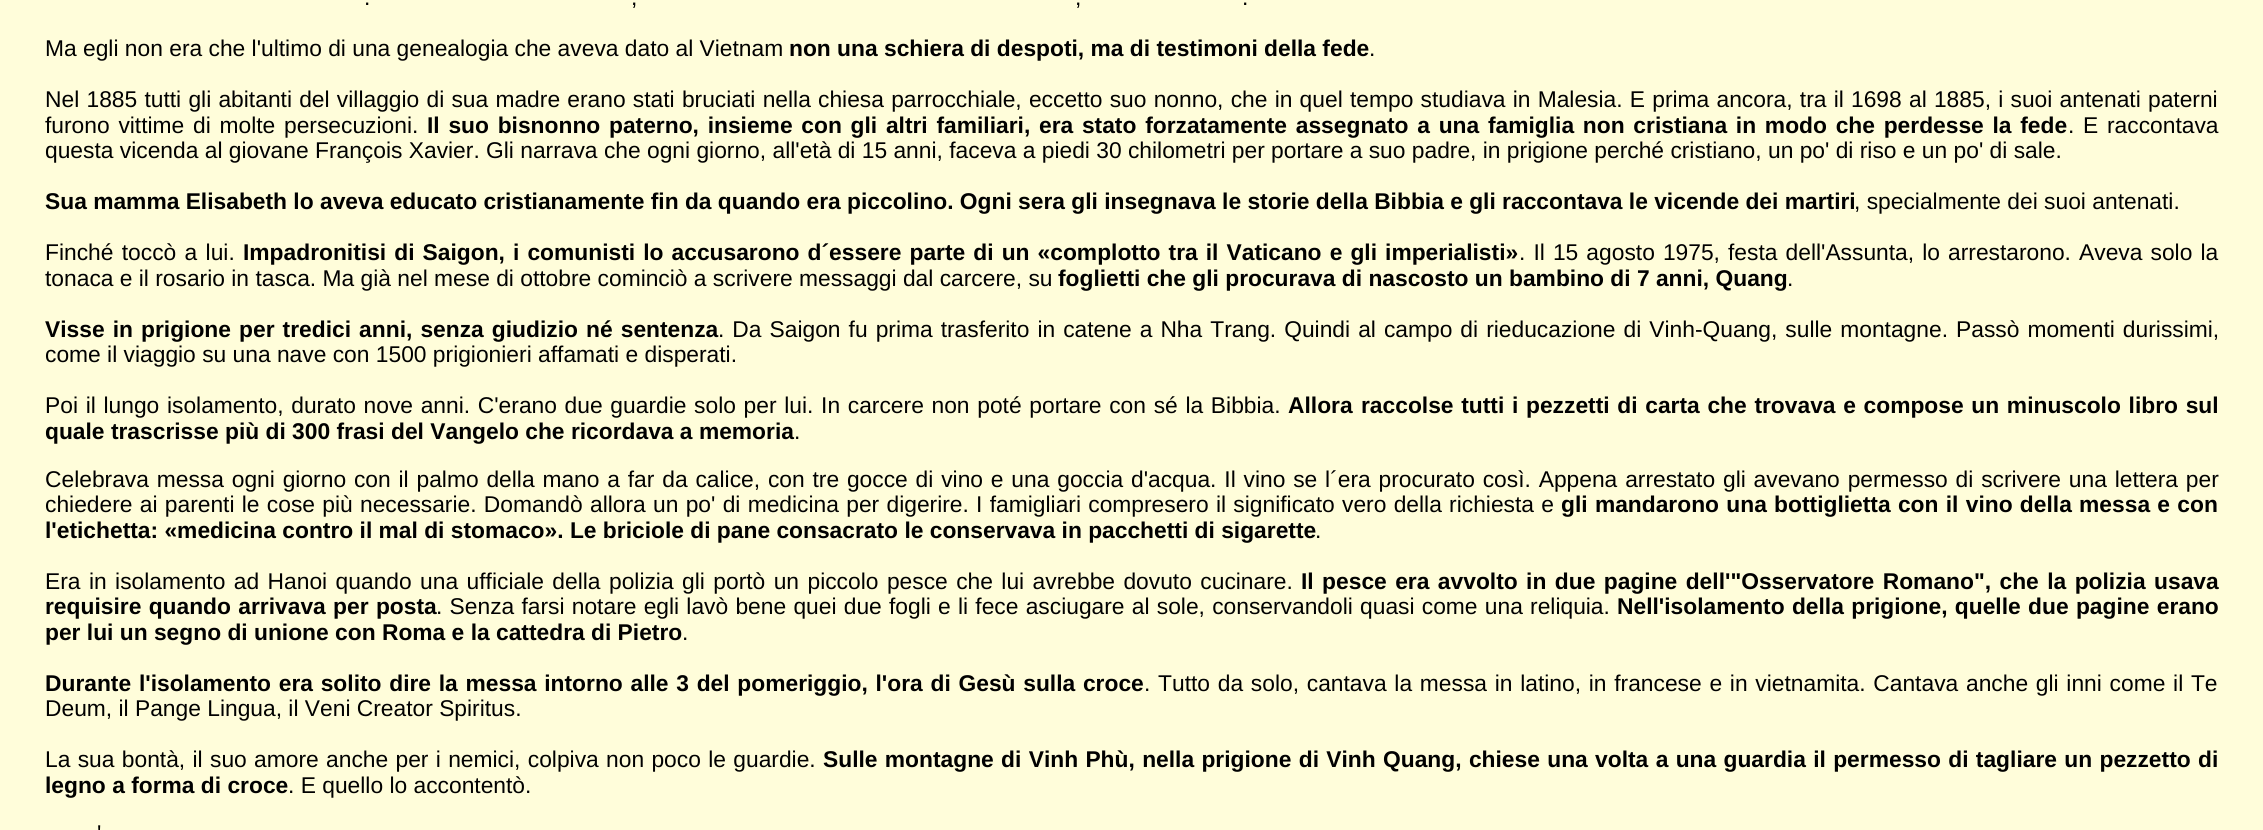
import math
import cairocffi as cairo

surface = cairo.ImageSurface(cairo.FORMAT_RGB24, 2263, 830)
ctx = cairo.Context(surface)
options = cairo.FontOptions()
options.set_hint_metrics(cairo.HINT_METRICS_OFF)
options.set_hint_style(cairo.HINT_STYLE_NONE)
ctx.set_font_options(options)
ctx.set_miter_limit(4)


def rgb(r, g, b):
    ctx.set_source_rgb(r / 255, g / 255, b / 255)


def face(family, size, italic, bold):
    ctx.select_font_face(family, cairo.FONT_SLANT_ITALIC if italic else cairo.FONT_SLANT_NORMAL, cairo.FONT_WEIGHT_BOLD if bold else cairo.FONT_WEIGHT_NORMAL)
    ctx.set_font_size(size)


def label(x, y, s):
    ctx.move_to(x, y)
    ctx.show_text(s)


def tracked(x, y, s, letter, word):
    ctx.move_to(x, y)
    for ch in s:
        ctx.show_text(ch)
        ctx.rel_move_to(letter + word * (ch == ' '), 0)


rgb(255, 253, 218)
ctx.paint()
face('Liberation Sans', 22.8, 0, 0)
rgb(0, 0, 0)
label(364, 5, '.')
label(631, 5, ',')
label(1075, 5, ',')
label(1242, 5, '.')
label(45, 56, 'Ma egli non era che l\'ultimo di una genealogia che aveva dato al Vietnam')
face('Liberation Sans', 22.8, 0, 1)
label(789, 56, 'non una schiera di despoti, ma di testimoni della fede')
face('Liberation Sans', 22.8, 0, 0)
label(1369, 56, '.')
tracked(45, 107, 'Nel 1885 tutti gli abitanti del villaggio di sua madre erano stati bruciati nella chiesa parrocchiale, eccetto suo nonno, che in quel tempo studiava in Malesia. E prima ancora, tra il 1698 al 1885, i suoi antenati paterni', 0, 0.9)
tracked(45, 133, 'furono vittime di molte persecuzioni.', 0, 2.4)
face('Liberation Sans', 22.8, 0, 1)
tracked(427, 133, 'Il suo bisnonno paterno, insieme con gli altri familiari, era stato forzatamente assegnato a una famiglia non cristiana in modo che perdesse la fede', 0, 2.4)
face('Liberation Sans', 22.8, 0, 0)
tracked(2068, 133, '. E raccontava', 0, 2.4)
label(45, 158, 'questa vicenda al giovane François Xavier. Gli narrava che ogni giorno, all\'età di 15 anni, faceva a piedi 30 chilometri per portare a suo padre, in prigione perché cristiano, un po\' di riso e un po\' di sale.')
face('Liberation Sans', 22.8, 0, 1)
label(45, 209, 'Sua mamma Elisabeth lo aveva educato cristianamente fin da quando era piccolino. Ogni sera gli insegnava le storie della Bibbia e gli raccontava le vicende dei martiri')
face('Liberation Sans', 22.8, 0, 0)
label(1854, 209, ', specialmente dei suoi antenati.')
tracked(45, 260, 'Finché toccò a lui.', 0, 2)
face('Liberation Sans', 22.8, 0, 1)
tracked(243, 260, 'Impadronitisi di Saigon, i comunisti lo accusarono d´essere parte di un «complotto tra il Vaticano e gli imperialisti»', 0, 1.75)
face('Liberation Sans', 22.8, 0, 0)
tracked(1519, 260, '. Il 15 agosto 1975, festa dell\'Assunta, lo arrestarono. Aveva solo la', 0, 1.75)
label(45, 286, 'tonaca e il rosario in tasca. Ma già nel mese di ottobre cominciò a scrivere messaggi dal carcere, su')
face('Liberation Sans', 22.8, 0, 1)
label(1058, 286, 'foglietti che gli procurava di nascosto un bambino di 7 anni, Quang')
face('Liberation Sans', 22.8, 0, 0)
label(1787, 286, '.')
face('Liberation Sans', 22.8, 0, 1)
tracked(45, 337, 'Visse in prigione per tredici anni, senza giudizio né sentenza', 0, 1.75)
face('Liberation Sans', 22.8, 0, 0)
tracked(718, 337, '. Da Saigon fu prima trasferito in catene a Nha Trang. Quindi al campo di rieducazione di Vinh-Quang, sulle montagne. Passò momenti durissimi,', 0, 1.7)
label(45, 362, 'come il viaggio su una nave con 1500 prigionieri affamati e disperati.')
tracked(45, 413, 'Poi il lungo isolamento, durato nove anni. C\'erano due guardie solo per lui. In carcere non poté portare con sé la Bibbia.', 0, 1.35)
face('Liberation Sans', 22.8, 0, 1)
label(1288, 413, 'Allora')
tracked(1361, 413, 'raccolse tutti i pezzetti di carta che trovava e compose un minuscolo libro sul', 0, 1.35)
label(45, 439, 'quale trascrisse più di 300 frasi del Vangelo che ricordava a memoria')
face('Liberation Sans', 22.8, 0, 0)
label(794, 439, '.')
tracked(45, 487, 'Celebrava messa ogni giorno con il palmo della mano a far da calice, con tre gocce di vino e una goccia d\'acqua. Il vino se l´era procurato così. Appena arrestato gli avevano permesso di scrivere una lettera per', 0, 1.5)
tracked(45, 512, 'chiedere ai parenti le cose più necessarie. Domandò allora un po\' di medicina per digerire. I famigliari compresero il significato vero della richiesta e', 0, 0.95)
face('Liberation Sans', 22.8, 0, 1)
tracked(1561, 512, 'gli mandarono una bottiglietta con il vino della messa e con', 0, 0.95)
label(45, 538, 'l\'etichetta: «medicina contro il mal di stomaco». Le briciole di pane consacrato le conservava in pacchetti di sigarette')
face('Liberation Sans', 22.8, 0, 0)
label(1315, 538, '.')
tracked(45, 589, 'Era in isolamento ad Hanoi quando una ufficiale della polizia gli portò un piccolo pesce che lui avrebbe dovuto cucinare.', 0, 2.1)
face('Liberation Sans', 22.8, 0, 1)
tracked(1301, 589, 'Il pesce era avvolto in due pagine dell\'"Osservatore Romano", che la polizia usava', 0, 2.1)
tracked(45, 614, 'requisire quando arrivava per posta', 0, 1)
face('Liberation Sans', 22.8, 0, 0)
tracked(436, 614, '. Senza farsi notare egli lavò bene quei due fogli e li fece asciugare al sole, conservandoli quasi come una reliquia.', 0, 0.9)
face('Liberation Sans', 22.8, 0, 1)
tracked(1617, 614, 'Nell\'isolamento della prigione, quelle due pagine erano', 0, 1)
label(45, 640, 'per lui un segno di unione con Roma e la cattedra di Pietro')
face('Liberation Sans', 22.8, 0, 0)
label(682, 640, '.')
face('Liberation Sans', 22.8, 0, 1)
tracked(45, 691, 'Durante l\'isolamento era solito dire la messa intorno alle 3 del pomeriggio, l\'ora di Gesù sulla croce', 0, 1.4)
face('Liberation Sans', 22.8, 0, 0)
tracked(1144, 691, '. Tutto da solo, cantava la messa in latino, in francese e in vietnamita. Cantava anche gli inni come il Te', 0, 1.4)
label(45, 716, 'Deum, il Pange Lingua, il Veni Creator Spiritus.')
tracked(45, 767, 'La sua bontà, il suo amore anche per i nemici, colpiva non poco le guardie.', 0, 1)
face('Liberation Sans', 22.8, 0, 1)
tracked(823, 767, 'Sulle montagne di Vinh Phù, nella prigione di Vinh Quang, chiese una volta a una guardia il permesso di tagliare un pezzetto di', 0, 1)
label(45, 793, 'legno a forma di croce')
face('Liberation Sans', 22.8, 0, 0)
label(288, 793, '. E quello lo accontentò.')
tracked(97, 841, '\'', 0, 1)
surface.write_to_png('render.png')
